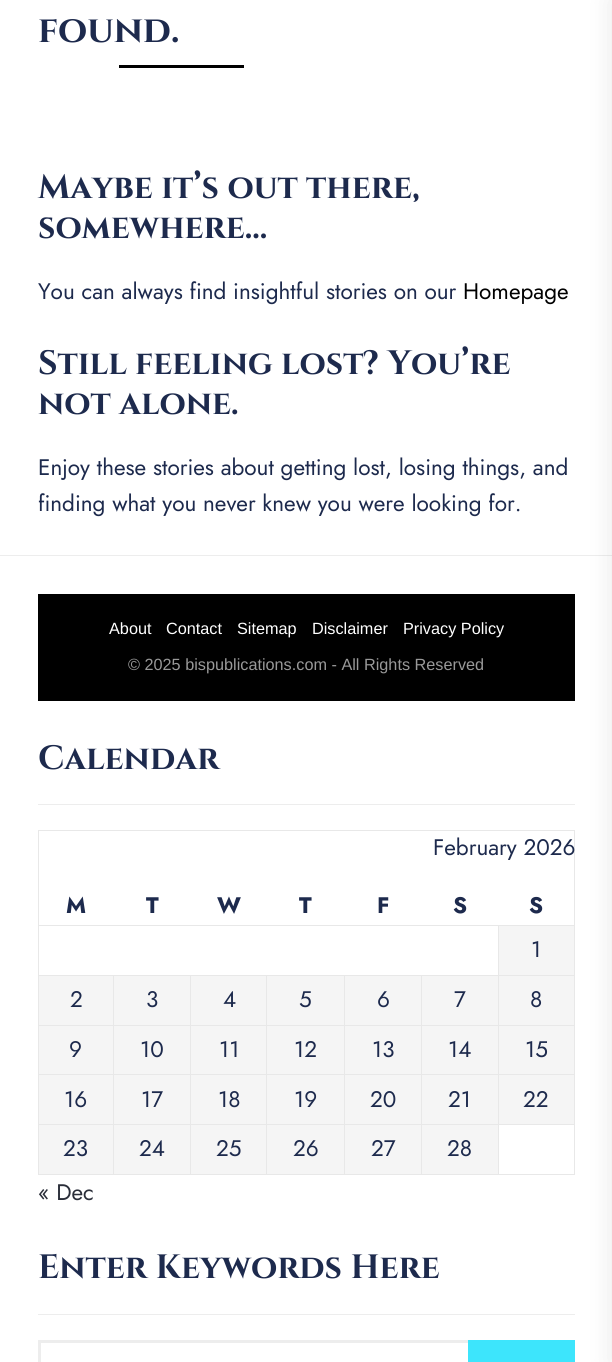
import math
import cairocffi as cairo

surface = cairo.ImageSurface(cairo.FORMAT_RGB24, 612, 1362)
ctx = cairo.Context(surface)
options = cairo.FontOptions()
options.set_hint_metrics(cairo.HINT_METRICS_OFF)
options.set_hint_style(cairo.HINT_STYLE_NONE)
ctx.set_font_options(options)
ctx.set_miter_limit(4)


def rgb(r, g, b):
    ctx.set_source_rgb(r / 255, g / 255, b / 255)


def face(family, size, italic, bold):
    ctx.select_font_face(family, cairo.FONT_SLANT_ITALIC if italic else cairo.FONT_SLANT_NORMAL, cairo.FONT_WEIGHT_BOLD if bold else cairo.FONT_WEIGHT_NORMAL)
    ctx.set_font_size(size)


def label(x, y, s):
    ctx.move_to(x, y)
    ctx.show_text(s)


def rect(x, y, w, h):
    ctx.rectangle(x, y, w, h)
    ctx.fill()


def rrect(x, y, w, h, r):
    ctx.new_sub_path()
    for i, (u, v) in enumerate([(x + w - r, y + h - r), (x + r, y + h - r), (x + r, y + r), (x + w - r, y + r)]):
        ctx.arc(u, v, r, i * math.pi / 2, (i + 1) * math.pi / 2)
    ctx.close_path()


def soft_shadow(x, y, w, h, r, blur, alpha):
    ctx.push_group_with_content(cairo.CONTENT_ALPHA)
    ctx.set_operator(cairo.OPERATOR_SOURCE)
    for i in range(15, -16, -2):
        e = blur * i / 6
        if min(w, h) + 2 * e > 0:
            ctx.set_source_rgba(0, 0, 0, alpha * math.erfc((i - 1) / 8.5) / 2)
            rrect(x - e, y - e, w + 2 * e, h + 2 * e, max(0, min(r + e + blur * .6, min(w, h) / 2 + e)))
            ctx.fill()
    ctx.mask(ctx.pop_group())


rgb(255, 255, 255)
ctx.paint()
face('Cinzel', 37.5, 0, 1)
rgb(29, 42, 77)
label(38, 42, 'found.')
rgb(0, 0, 0)
rect(119, 65, 125, 3)
face('Cinzel', 33.75, 0, 1)
rgb(29, 42, 77)
label(38, 198, 'Maybe it’s out there,')
label(38, 238, 'somewhere...')
face('Jost', 22.5, 0, 0)
label(38, 299, 'You can always find insightful stories on our')
rgb(0, 0, 0)
label(463, 299, 'Homepage')
face('Cinzel', 33.75, 0, 1)
rgb(29, 42, 77)
label(38, 374, 'Still feeling lost? You’re')
label(38, 414, 'not alone.')
face('Jost', 22.5, 0, 0)
label(38, 475, 'Enjoy these stories about getting lost, losing things, and')
label(38, 511, 'finding what you never knew you were looking for.')
rgb(237, 237, 237)
rect(0, 555, 612, 1)
rgb(0, 0, 0)
rect(38, 594, 537, 107)
rgb(237, 237, 237)
rect(38, 804, 537, 1)
rgb(232, 232, 232)
rect(38, 830, 537, 1)
rect(574, 830, 1, 345)
rect(38, 1174, 537, 1)
rect(498, 925, 77, 1)
rect(498, 975, 77, 1)
rect(498, 1025, 77, 1)
rect(498, 1074, 77, 1)
rect(498, 1124, 77, 1)
rgb(237, 237, 237)
rect(38, 1314, 537, 1)
rgb(61, 229, 252)
rect(468, 1340, 107, 22)
rgb(0, 0, 0)
soft_shadow(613, 0, 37, 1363, 0, 12.5, 0.1)
face('Liberation Sans', 16.25, 0, 0)
rgb(255, 255, 255)
label(109, 634, 'About')
label(166, 634, 'Contact')
label(237, 634, 'Sitemap')
label(312, 634, 'Disclaimer')
label(403, 634, 'Privacy Policy')
rgb(153, 153, 153)
label(128, 670, '© 2025 bispublications.com - All Rights Reserved')
face('Cinzel', 33.75, 0, 1)
rgb(29, 42, 77)
label(38, 769, 'Calendar')
rgb(232, 232, 232)
rect(38, 830, 1, 345)
face('Jost', 22.5, 0, 0)
rgb(29, 42, 77)
label(433, 855, 'February 2026')
face('Jost', 22.5, 0, 1)
label(66, 913, 'M')
label(146, 913, 'T')
label(217, 913, 'W')
label(299, 913, 'T')
label(377, 913, 'F')
label(453, 913, 'S')
label(529, 913, 'S')
rgb(232, 232, 232)
rect(498, 1124, 1, 51)
rect(421, 1124, 78, 1)
rect(498, 1074, 1, 51)
rect(421, 1074, 78, 1)
rect(498, 1025, 1, 50)
rect(421, 1025, 78, 1)
rect(498, 975, 1, 51)
rect(421, 975, 78, 1)
rect(498, 925, 1, 51)
rect(38, 925, 461, 1)
rgb(245, 245, 245)
rect(499, 926, 75, 49)
face('Jost', 22.5, 0, 0)
rgb(29, 42, 77)
label(531, 957, '1')
rgb(245, 245, 245)
rect(39, 976, 74, 49)
rect(345, 976, 153, 49)
rect(345, 1026, 153, 48)
rect(345, 1075, 153, 49)
rect(345, 1125, 153, 49)
rgb(232, 232, 232)
rect(421, 1124, 1, 51)
rect(344, 1124, 79, 1)
rect(421, 1074, 1, 51)
rect(344, 1074, 79, 1)
rect(421, 1025, 1, 50)
rect(344, 1025, 79, 1)
rect(421, 975, 1, 51)
rect(344, 975, 79, 1)
rect(344, 1124, 1, 51)
rect(266, 1124, 79, 1)
rect(344, 1074, 1, 51)
rect(266, 1074, 79, 1)
rect(344, 1025, 1, 50)
rect(266, 1025, 79, 1)
rect(344, 975, 1, 51)
rect(266, 975, 79, 1)
rgb(245, 245, 245)
rect(191, 976, 153, 49)
rect(191, 1026, 153, 48)
rect(191, 1075, 153, 49)
rect(191, 1125, 153, 49)
rgb(232, 232, 232)
rect(266, 1124, 1, 51)
rect(190, 1124, 78, 1)
rect(266, 1074, 1, 51)
rect(190, 1074, 78, 1)
rect(266, 1025, 1, 50)
rect(190, 1025, 78, 1)
rect(266, 975, 1, 51)
rect(190, 975, 78, 1)
rect(190, 1124, 1, 51)
rect(113, 1124, 78, 1)
rect(190, 1074, 1, 51)
rect(113, 1074, 78, 1)
rect(190, 1025, 1, 50)
rect(113, 1025, 78, 1)
rect(190, 975, 1, 51)
rect(113, 975, 78, 1)
rect(113, 1124, 1, 51)
rect(38, 1124, 76, 1)
rect(113, 1074, 1, 51)
rect(38, 1074, 76, 1)
rect(113, 1025, 1, 50)
rect(38, 1025, 76, 1)
rect(113, 975, 1, 51)
rect(38, 975, 76, 1)
rgb(29, 42, 77)
label(70, 1007, '2')
rgb(245, 245, 245)
rect(114, 976, 76, 49)
rgb(29, 42, 77)
label(146, 1007, '3')
label(223, 1007, '4')
label(299, 1007, '5')
label(377, 1007, '6')
label(454, 1007, '7')
rgb(245, 245, 245)
rect(499, 976, 75, 49)
rgb(29, 42, 77)
label(530, 1007, '8')
rgb(245, 245, 245)
rect(39, 1026, 74, 48)
rgb(29, 42, 77)
label(69, 1057, '9')
rgb(245, 245, 245)
rect(114, 1026, 76, 48)
rgb(29, 42, 77)
label(140, 1057, '10')
label(219, 1057, '11')
label(294, 1057, '12')
label(372, 1057, '13')
label(448, 1057, '14')
rgb(245, 245, 245)
rect(499, 1026, 75, 48)
rgb(29, 42, 77)
label(525, 1057, '15')
rgb(245, 245, 245)
rect(39, 1075, 74, 49)
rgb(29, 42, 77)
label(64, 1107, '16')
rgb(245, 245, 245)
rect(114, 1075, 76, 49)
rgb(29, 42, 77)
label(141, 1107, '17')
label(218, 1107, '18')
label(294, 1107, '19')
label(370, 1107, '20')
label(448, 1107, '21')
rgb(245, 245, 245)
rect(499, 1075, 75, 49)
rgb(29, 42, 77)
label(523, 1107, '22')
rgb(245, 245, 245)
rect(39, 1125, 74, 49)
rgb(29, 42, 77)
label(63, 1156, '23')
rgb(245, 245, 245)
rect(114, 1125, 76, 49)
rgb(29, 42, 77)
label(139, 1156, '24')
label(216, 1156, '25')
label(293, 1156, '26')
label(371, 1156, '27')
label(447, 1156, '28')
rgb(42, 46, 57)
label(38, 1200, '« Dec')
face('Cinzel', 33.75, 0, 1)
rgb(29, 42, 77)
label(38, 1278, 'Enter Keywords Here')
rgb(237, 237, 237)
rect(38, 1340, 430, 3)
rect(38, 1340, 3, 22)
surface.write_to_png('render.png')
